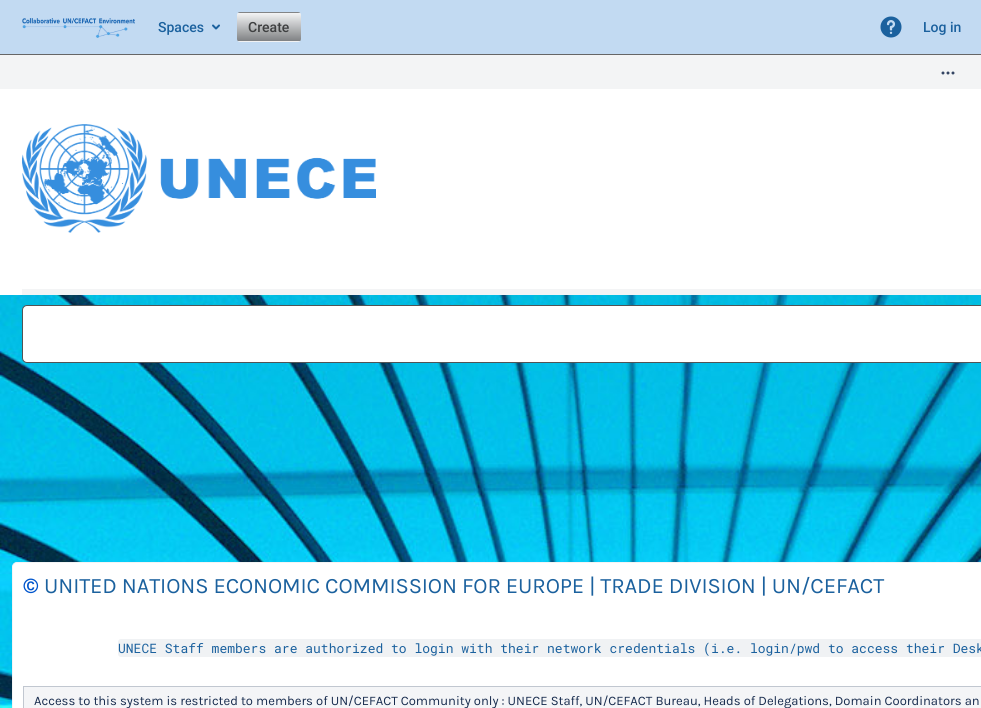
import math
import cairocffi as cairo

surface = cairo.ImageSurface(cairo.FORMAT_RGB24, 981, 708)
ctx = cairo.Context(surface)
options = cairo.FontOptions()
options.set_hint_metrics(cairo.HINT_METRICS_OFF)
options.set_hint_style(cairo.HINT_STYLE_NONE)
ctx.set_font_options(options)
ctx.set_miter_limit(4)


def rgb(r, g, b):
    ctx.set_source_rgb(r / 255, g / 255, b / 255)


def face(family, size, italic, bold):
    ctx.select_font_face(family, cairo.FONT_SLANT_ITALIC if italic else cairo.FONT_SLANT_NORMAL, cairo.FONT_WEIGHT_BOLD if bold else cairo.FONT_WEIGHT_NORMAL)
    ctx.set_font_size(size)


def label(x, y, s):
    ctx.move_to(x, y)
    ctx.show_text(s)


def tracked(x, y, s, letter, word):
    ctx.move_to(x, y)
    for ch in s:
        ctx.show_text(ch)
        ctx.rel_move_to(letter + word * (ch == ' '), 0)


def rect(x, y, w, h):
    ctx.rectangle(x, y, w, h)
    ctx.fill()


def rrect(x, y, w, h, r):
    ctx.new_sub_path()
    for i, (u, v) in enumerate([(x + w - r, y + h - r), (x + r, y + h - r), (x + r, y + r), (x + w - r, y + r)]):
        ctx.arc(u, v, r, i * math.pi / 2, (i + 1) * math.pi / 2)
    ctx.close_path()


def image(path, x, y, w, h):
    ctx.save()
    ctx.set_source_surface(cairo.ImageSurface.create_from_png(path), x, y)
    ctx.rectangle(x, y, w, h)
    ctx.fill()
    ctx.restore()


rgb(243, 244, 245)
ctx.paint()
rgb(194, 218, 242)
rect(0, 0, 981, 54)
rgb(102, 102, 102)
rect(0, 54, 981, 1)
image('image0.png', 22, 18, 113, 20)
face('Roboto Medium', 14, 0, 0)
rgb(27, 97, 158)
label(158, 32, 'Spaces')
image('image1.png', 212, 24, 8, 6)
ctx.save()
rrect(237, 12, 64, 30, 3)
ctx.clip()
gradient = cairo.LinearGradient(269, -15, 269, 13)
gradient.add_color_stop_rgba(0, 0.953, 0.957, 0.961, 1)
gradient.add_color_stop_rgba(1, 0.502, 0.51, 0.518, 1)
ctx.set_source(gradient)
rect(237, 12, 64, 1)
gradient = cairo.LinearGradient(269, 13, 269, 41)
gradient.add_color_stop_rgba(0, 0.953, 0.957, 0.961, 1)
gradient.add_color_stop_rgba(1, 0.502, 0.51, 0.518, 1)
ctx.set_source(gradient)
rect(237, 13, 64, 28)
gradient = cairo.LinearGradient(269, 41, 269, 69)
gradient.add_color_stop_rgba(0, 0.953, 0.957, 0.961, 1)
gradient.add_color_stop_rgba(1, 0.502, 0.51, 0.518, 1)
ctx.set_source(gradient)
rect(237, 41, 64, 1)
ctx.restore()
rgb(62, 63, 64)
label(248, 32, 'Create')
image('image2.png', 880, 16, 22, 22)
rgb(27, 97, 158)
label(923, 32, 'Log in')
image('image3.png', 941, 71, 14, 4)
image('image4.png', 0, 295, 981, 413)
rgb(255, 255, 255)
rect(0, 89, 981, 206)
rgb(243, 244, 245)
rect(22, 289, 959, 6)
image('image5.png', 22, 124, 354, 109)
rgb(255, 255, 255)
rrect(22.5, 305.5, 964, 57, 4.5)
ctx.fill_preserve()
rgb(82, 83, 84)
ctx.set_line_width(1)
ctx.stroke()
rgb(255, 255, 255)
rrect(12.5, 562.5, 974, 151, 4.5)
ctx.fill_preserve()
rgb(243, 244, 245)
ctx.stroke()
face('Karla', 22, 0, 1)
rgb(0, 85, 204)
tracked(23, 593, '©', -0.13, 0)
face('Karla', 22, 0, 0)
rgb(27, 97, 158)
tracked(44, 593, 'UNITED NATIONS ECONOMIC COMMISSION FOR EUROPE | TRADE DIVISION | UN/CEFACT', -0.13, 0)
rgb(240, 242, 244)
rrect(118, 639, 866, 18, 3)
ctx.fill()
face('Roboto Mono', 13, 0, 0)
rgb(27, 97, 158)
label(118, 653, 'UNECE Staff members are authorized to login with their network credentials (i.e. login/pwd to access their Desk')
rgb(244, 245, 247)
rect(24, 687, 957, 21)
rgb(193, 199, 208)
rect(23, 686, 958, 1)
rect(23, 686, 1, 22)
face('Karla', 13, 0, 0)
rgb(23, 43, 77)
label(34, 705, 'Access to this system is restricted to members of UN/CEFACT Community only : UNECE Staff, UN/CEFACT Bureau, Heads of Delegations, Domain Coordinators an')
surface.write_to_png('render.png')
